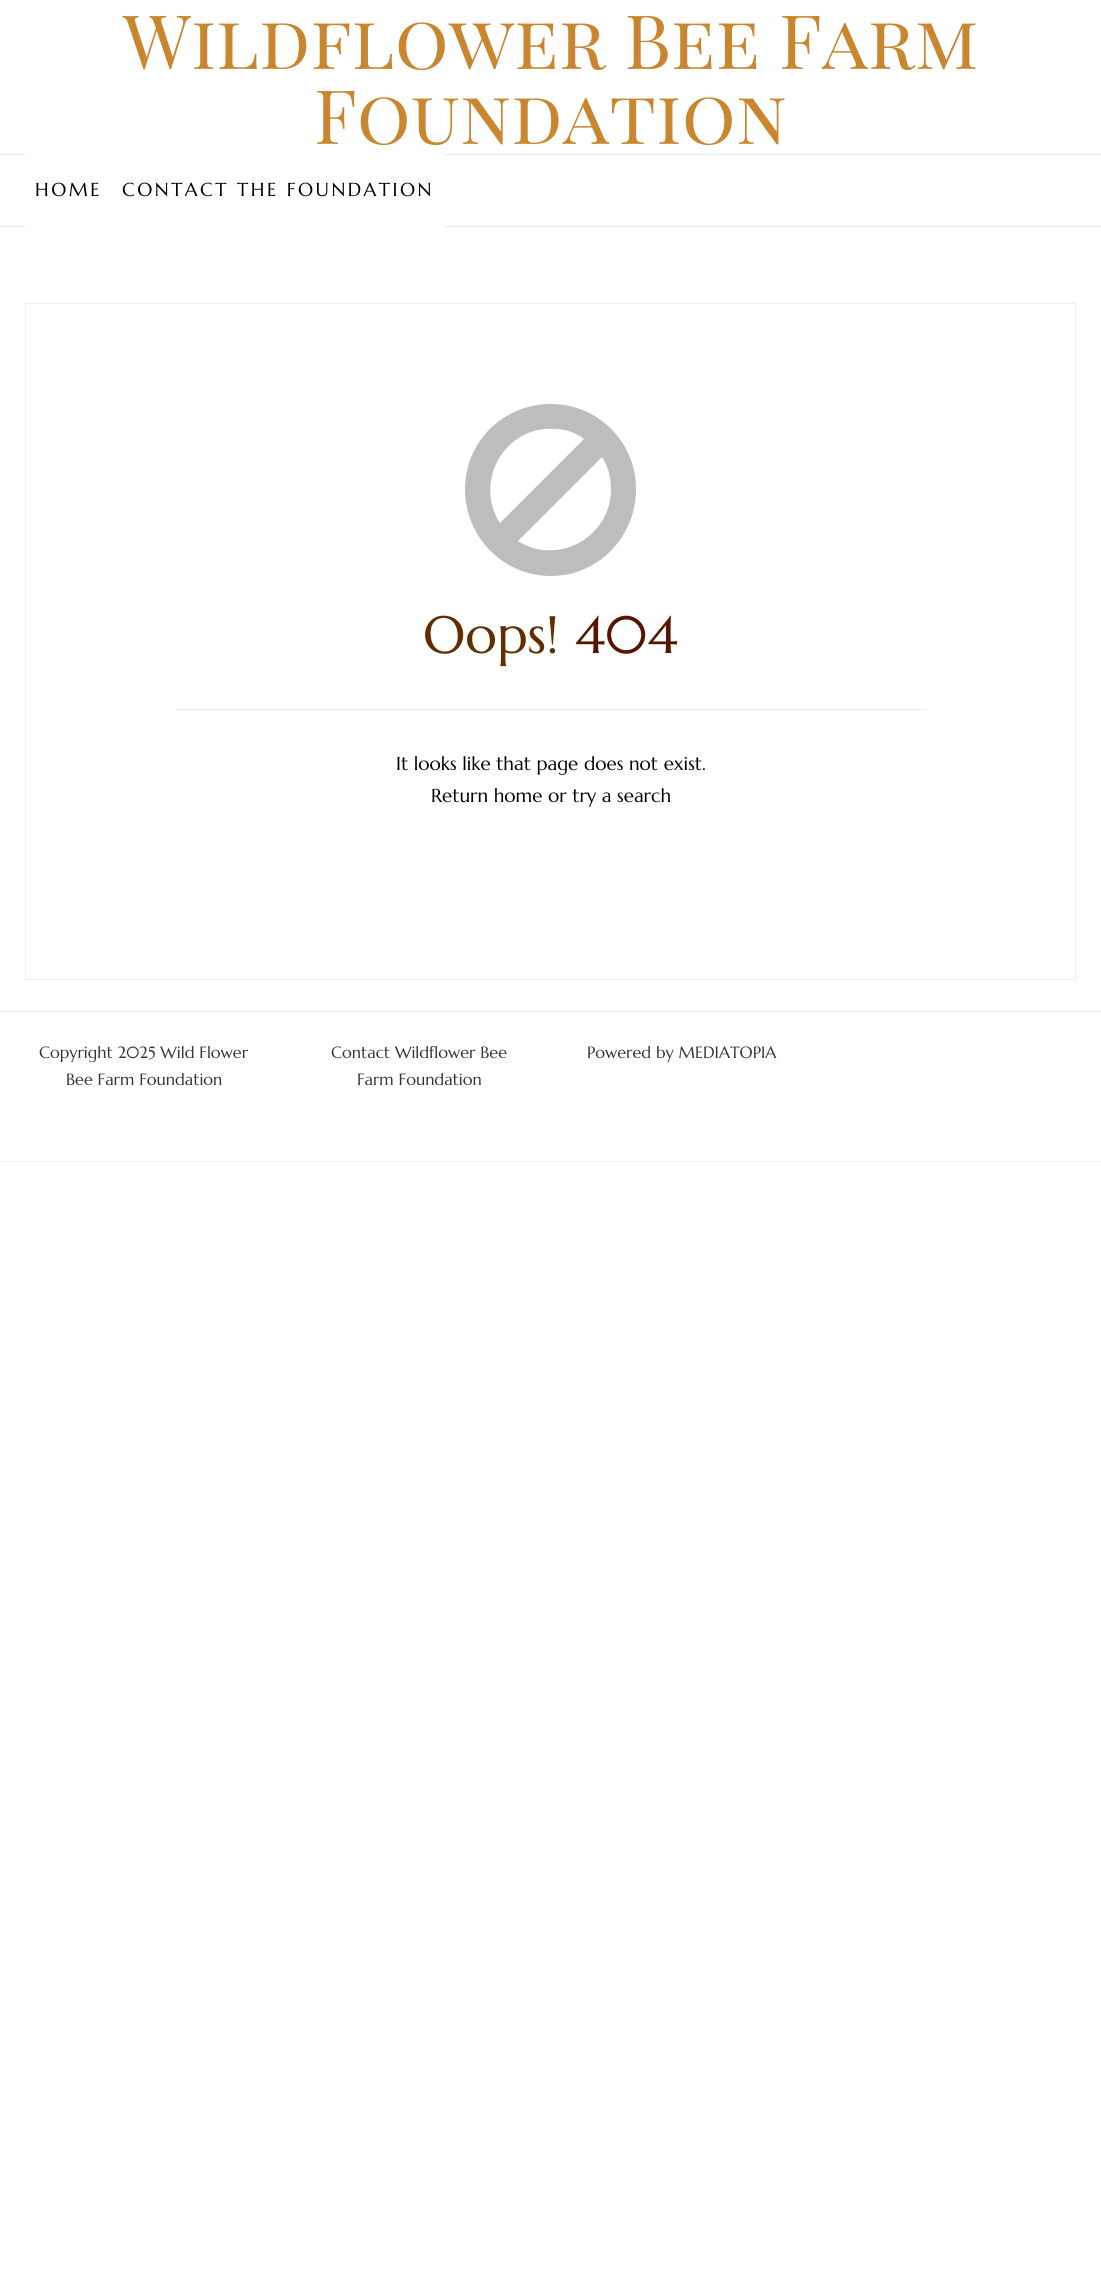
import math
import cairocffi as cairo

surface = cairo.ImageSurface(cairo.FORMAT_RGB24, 1101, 2271)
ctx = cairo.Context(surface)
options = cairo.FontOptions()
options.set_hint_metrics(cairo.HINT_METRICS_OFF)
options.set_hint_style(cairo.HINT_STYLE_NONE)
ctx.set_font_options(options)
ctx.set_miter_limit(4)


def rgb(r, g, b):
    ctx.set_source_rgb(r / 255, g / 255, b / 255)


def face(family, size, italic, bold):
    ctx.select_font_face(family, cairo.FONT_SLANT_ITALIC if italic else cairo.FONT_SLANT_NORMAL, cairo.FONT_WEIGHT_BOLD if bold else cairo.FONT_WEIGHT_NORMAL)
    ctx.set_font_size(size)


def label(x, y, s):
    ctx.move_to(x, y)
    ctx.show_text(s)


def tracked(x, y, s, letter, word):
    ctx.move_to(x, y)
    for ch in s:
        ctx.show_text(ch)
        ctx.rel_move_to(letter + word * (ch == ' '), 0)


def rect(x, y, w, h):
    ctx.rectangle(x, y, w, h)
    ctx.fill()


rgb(255, 255, 255)
ctx.paint()
face('Playfair Display SC', 75, 0, 0)
rgb(201, 134, 46)
label(123, 69, 'Wildflower Bee Farm')
label(314, 144, 'Foundation')
rgb(235, 235, 235)
rect(0, 154, 1101, 1)
rect(0, 226, 1101, 1)
rgb(255, 255, 255)
rect(25, 154, 419, 73)
face('Marcellus', 18.75, 0, 0)
rgb(0, 0, 0)
tracked(35, 196, 'HOME', 2.5, 0)
tracked(122, 196, 'CONTACT THE FOUNDATION', 2.5, 0)
ctx.rectangle(25.5, 303.5, 1050, 676)
rgb(240, 240, 240)
ctx.set_line_width(1)
ctx.stroke()
rgb(189, 189, 189)
ctx.new_path()
ctx.move_to(611, 489)
ctx.curve_to(611, 538, 557, 566, 518, 541)
ctx.line_to(602, 457)
ctx.curve_to(608, 466, 611, 477, 611, 489)
ctx.close_path()
ctx.move_to(500, 523)
ctx.curve_to(473, 482, 505, 425, 555, 429)
ctx.curve_to(566, 429, 576, 433, 584, 439)
ctx.close_path()
ctx.move_to(636, 489)
ctx.curve_to(636, 442, 598, 404, 551, 404)
ctx.curve_to(503, 404, 465, 442, 465, 489)
ctx.curve_to(465, 537, 503, 576, 551, 576)
ctx.curve_to(598, 576, 636, 537, 636, 489)
ctx.close_path()
ctx.fill()
rgb(235, 235, 235)
rect(176, 709, 750, 1)
face('Marcellus', 52.5, 0, 0)
rgb(96, 46, 1)
label(423, 653, 'Oops!')
rgb(84, 22, 0)
label(575, 653, '404')
face('Marcellus', 18.75, 0, 0)
rgb(0, 0, 0)
label(396, 770, 'It looks like that page does not exist.')
label(431, 802, 'Return home or try a search')
rgb(233, 233, 233)
rect(0, 1011, 1101, 1)
face('Marcellus', 16.25, 0, 0)
rgb(51, 51, 51)
label(39, 1058, 'Copyright 2025 Wild Flower')
label(66, 1085, 'Bee Farm Foundation')
label(331, 1058, 'Contact Wildflower Bee')
label(357, 1085, 'Farm Foundation')
label(587, 1058, 'Powered by MEDIATOPIA')
rgb(241, 241, 241)
rect(0, 1161, 1101, 1)
surface.write_to_png('render.png')
